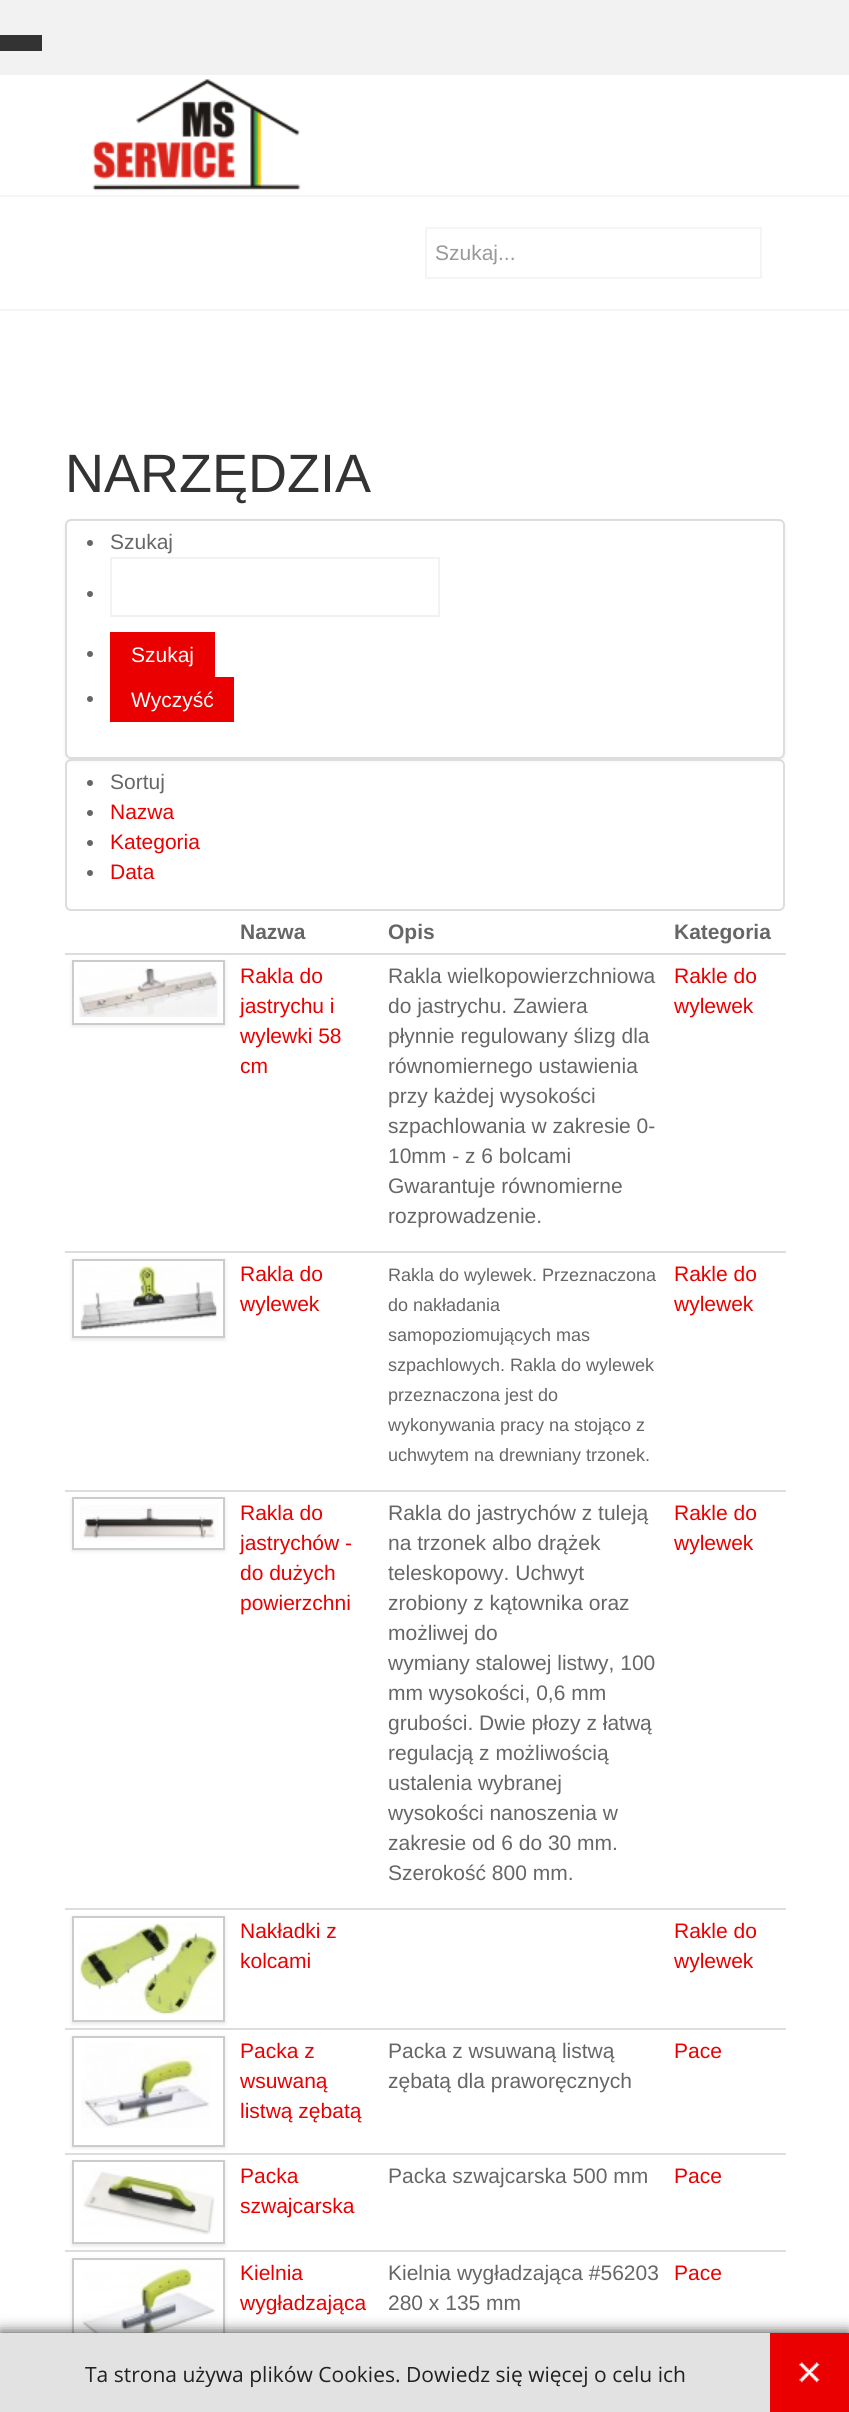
import math
import cairocffi as cairo

surface = cairo.ImageSurface(cairo.FORMAT_RGB24, 849, 2412)
ctx = cairo.Context(surface)
options = cairo.FontOptions()
options.set_hint_metrics(cairo.HINT_METRICS_OFF)
options.set_hint_style(cairo.HINT_STYLE_NONE)
ctx.set_font_options(options)
ctx.set_miter_limit(4)


def rgb(r, g, b):
    ctx.set_source_rgb(r / 255, g / 255, b / 255)


def face(family, size, italic, bold):
    ctx.select_font_face(family, cairo.FONT_SLANT_ITALIC if italic else cairo.FONT_SLANT_NORMAL, cairo.FONT_WEIGHT_BOLD if bold else cairo.FONT_WEIGHT_NORMAL)
    ctx.set_font_size(size)


def label(x, y, s):
    ctx.move_to(x, y)
    ctx.show_text(s)


def rect(x, y, w, h):
    ctx.rectangle(x, y, w, h)
    ctx.fill()


def rrect(x, y, w, h, r):
    ctx.new_sub_path()
    for i, (u, v) in enumerate([(x + w - r, y + h - r), (x + r, y + h - r), (x + r, y + r), (x + w - r, y + r)]):
        ctx.arc(u, v, r, i * math.pi / 2, (i + 1) * math.pi / 2)
    ctx.close_path()


def soft_shadow(x, y, w, h, r, blur, alpha):
    ctx.push_group_with_content(cairo.CONTENT_ALPHA)
    ctx.set_operator(cairo.OPERATOR_SOURCE)
    for i in range(15, -16, -2):
        e = blur * i / 6
        if min(w, h) + 2 * e > 0:
            ctx.set_source_rgba(0, 0, 0, alpha * math.erfc((i - 1) / 8.5) / 2)
            rrect(x - e, y - e, w + 2 * e, h + 2 * e, max(0, min(r + e + blur * .6, min(w, h) / 2 + e)))
            ctx.fill()
    ctx.mask(ctx.pop_group())


def image(path, x, y, w, h):
    ctx.save()
    ctx.set_source_surface(cairo.ImageSurface.create_from_png(path), x, y)
    ctx.rectangle(x, y, w, h)
    ctx.fill()
    ctx.restore()


rgb(242, 242, 242)
ctx.paint()
rgb(255, 255, 255)
rect(0, 75, 849, 2258)
rgb(51, 51, 51)
rect(0, 35, 42, 16)
rgb(245, 245, 245)
rect(0, 195, 849, 2)
image('image0.png', 92, 79, 209, 112)
rect(0, 309, 849, 2)
ctx.rectangle(426, 228, 335, 50)
ctx.stroke()
face('Liberation Sans', 21, 0, 0)
rgb(153, 153, 153)
label(435, 260, 'Szukaj...')
face('Liberation Sans', 54, 0, 0)
rgb(51, 51, 51)
label(65, 492, 'NARZĘDZIA')
ctx.save()
ctx.set_fill_rule(cairo.FILL_RULE_EVEN_ODD)
ctx.new_path()
ctx.move_to(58, 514)
ctx.line_to(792, 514)
ctx.line_to(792, 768)
ctx.line_to(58, 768)
ctx.close_path()
ctx.move_to(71, 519)
ctx.line_to(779, 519)
ctx.curve_to(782.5, 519, 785, 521.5, 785, 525)
ctx.line_to(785, 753)
ctx.curve_to(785, 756.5, 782.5, 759, 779, 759)
ctx.line_to(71, 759)
ctx.curve_to(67.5, 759, 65, 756.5, 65, 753)
ctx.line_to(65, 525)
ctx.curve_to(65, 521.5, 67.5, 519, 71, 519)
ctx.close_path()
ctx.clip()
rgb(0, 0, 0)
soft_shadow(65, 521, 720, 240, 6, 2, 0.06)
ctx.restore()
rrect(66, 520, 718, 238, 5)
rgb(221, 221, 221)
ctx.stroke()
rgb(102, 102, 102)
ctx.arc(90, 543, 3, 0, 2 * math.pi)
ctx.fill()
face('Liberation Sans', 21, 0, 0)
label(110, 549, 'Szukaj')
ctx.new_path()
ctx.arc(90, 594, 3, 0, 2 * math.pi)
ctx.fill()
ctx.rectangle(111, 558, 328, 58)
rgb(242, 242, 242)
ctx.stroke()
rgb(102, 102, 102)
ctx.arc(90, 654, 3, 0, 2 * math.pi)
ctx.fill()
rgb(234, 0, 0)
rect(110, 632, 105, 45)
rgb(255, 255, 255)
label(131, 662, 'Szukaj')
rgb(102, 102, 102)
ctx.new_path()
ctx.arc(90, 699, 3, 0, 2 * math.pi)
ctx.fill()
rgb(234, 0, 0)
rect(110, 677, 124, 45)
rgb(255, 255, 255)
label(131, 707, 'Wyczyść')
rrect(66, 760, 718, 150, 5)
rgb(221, 221, 221)
ctx.stroke()
rgb(102, 102, 102)
ctx.arc(90, 783, 3, 0, 2 * math.pi)
ctx.fill()
label(110, 789, 'Sortuj')
ctx.new_path()
ctx.arc(90, 813, 3, 0, 2 * math.pi)
ctx.fill()
rgb(234, 0, 0)
label(110, 819, 'Nazwa')
rgb(102, 102, 102)
ctx.new_path()
ctx.arc(90, 843, 3, 0, 2 * math.pi)
ctx.fill()
rgb(234, 0, 0)
label(110, 849, 'Kategoria')
rgb(102, 102, 102)
ctx.new_path()
ctx.arc(90, 873, 3, 0, 2 * math.pi)
ctx.fill()
rgb(234, 0, 0)
label(110, 879, 'Data')
face('Liberation Sans', 21, 0, 1)
rgb(102, 102, 102)
label(240, 939, 'Nazwa')
label(388, 939, 'Opis')
label(674, 939, 'Kategoria')
rgb(0, 0, 0)
soft_shadow(72, 962, 153, 64, 0, 2, 0.1)
rgb(255, 255, 255)
ctx.rectangle(73, 961, 151, 63)
ctx.fill_preserve()
rgb(204, 204, 204)
ctx.stroke()
image('image1.png', 79, 968, 139, 49)
face('Liberation Sans', 21, 0, 0)
rgb(234, 0, 0)
label(240, 983, 'Rakla do')
label(240, 1013, 'jastrychu i')
label(240, 1043, 'wylewki 58')
label(240, 1073, 'cm')
rgb(102, 102, 102)
label(388, 983, 'Rakla wielkopowierzchniowa')
label(388, 1013, 'do jastrychu. Zawiera')
label(388, 1043, 'płynnie regulowany ślizg dla')
label(388, 1073, 'równomiernego ustawienia')
label(388, 1103, 'przy każdej wysokości')
label(388, 1133, 'szpachlowania w zakresie 0-')
label(388, 1163, '10mm - z 6 bolcami')
label(388, 1193, 'Gwarantuje równomierne')
label(388, 1223, 'rozprowadzenie.')
rgb(221, 221, 221)
rect(65, 953, 721, 2)
rgb(234, 0, 0)
label(674, 983, 'Rakle do')
label(674, 1013, 'wylewek')
ctx.save()
ctx.set_fill_rule(cairo.FILL_RULE_EVEN_ODD)
ctx.new_path()
ctx.move_to(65, 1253)
ctx.line_to(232, 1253)
ctx.line_to(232, 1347)
ctx.line_to(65, 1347)
ctx.close_path()
ctx.move_to(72, 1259)
ctx.line_to(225, 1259)
ctx.line_to(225, 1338)
ctx.line_to(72, 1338)
ctx.close_path()
ctx.clip()
rgb(0, 0, 0)
soft_shadow(72, 1260, 153, 80, 0, 2, 0.1)
ctx.restore()
ctx.rectangle(73, 1260, 151, 77)
rgb(204, 204, 204)
ctx.stroke()
image('image2.png', 80, 1266, 138, 65)
rgb(234, 0, 0)
label(240, 1281, 'Rakla do')
label(240, 1311, 'wylewek')
face('Liberation Sans', 18, 0, 0)
rgb(102, 102, 102)
label(388, 1281, 'Rakla do wylewek. Przeznaczona')
label(388, 1311, 'do nakładania')
label(388, 1341, 'samopoziomujących mas')
label(388, 1371, 'szpachlowych. Rakla do wylewek')
label(388, 1401, 'przeznaczona jest do')
label(388, 1431, 'wykonywania pracy na stojąco z')
label(388, 1461, 'uchwytem na drewniany trzonek.')
rgb(221, 221, 221)
rect(65, 1251, 721, 2)
face('Liberation Sans', 21, 0, 0)
rgb(234, 0, 0)
label(674, 1281, 'Rakle do')
label(674, 1311, 'wylewek')
rgb(0, 0, 0)
soft_shadow(72, 1499, 153, 52, 0, 2, 0.1)
rgb(255, 255, 255)
ctx.rectangle(73, 1498, 151, 51)
ctx.fill_preserve()
rgb(204, 204, 204)
ctx.stroke()
image('image3.png', 80, 1505, 138, 36)
rgb(234, 0, 0)
label(240, 1520, 'Rakla do')
label(240, 1550, 'jastrychów -')
label(240, 1580, 'do dużych')
label(240, 1610, 'powierzchni')
rgb(102, 102, 102)
label(388, 1520, 'Rakla do jastrychów z tuleją')
label(388, 1550, 'na trzonek albo drążek')
label(388, 1580, 'teleskopowy. Uchwyt')
label(388, 1610, 'zrobiony z kątownika oraz')
label(388, 1640, 'możliwej do')
label(388, 1670, 'wymiany stalowej listwy, 100')
label(388, 1700, 'mm wysokości, 0,6 mm')
label(388, 1730, 'grubości. Dwie płozy z łatwą')
label(388, 1760, 'regulacją z możliwością')
label(388, 1790, 'ustalenia wybranej')
label(388, 1820, 'wysokości nanoszenia w')
label(388, 1850, 'zakresie od 6 do 30 mm.')
label(388, 1880, 'Szerokość 800 mm.')
rgb(221, 221, 221)
rect(65, 1490, 721, 2)
rgb(234, 0, 0)
label(674, 1520, 'Rakle do')
label(674, 1550, 'wylewek')
rgb(221, 221, 221)
rect(65, 2028, 721, 2)
ctx.save()
ctx.set_fill_rule(cairo.FILL_RULE_EVEN_ODD)
ctx.new_path()
ctx.move_to(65, 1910)
ctx.line_to(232, 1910)
ctx.line_to(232, 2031)
ctx.line_to(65, 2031)
ctx.close_path()
ctx.move_to(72, 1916)
ctx.line_to(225, 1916)
ctx.line_to(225, 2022)
ctx.line_to(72, 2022)
ctx.close_path()
ctx.clip()
rgb(0, 0, 0)
soft_shadow(72, 1917, 153, 107, 0, 2, 0.1)
ctx.restore()
ctx.rectangle(73, 1917, 151, 104)
rgb(204, 204, 204)
ctx.stroke()
image('image4.png', 79, 1923, 139, 92)
rgb(234, 0, 0)
label(240, 1938, 'Nakładki z')
label(240, 1968, 'kolcami')
rgb(221, 221, 221)
rect(65, 1908, 721, 2)
rgb(234, 0, 0)
label(674, 1938, 'Rakle do')
label(674, 1968, 'wylewek')
rgb(221, 221, 221)
rect(65, 2153, 721, 2)
rgb(0, 0, 0)
soft_shadow(72, 2037, 153, 111, 0, 2, 0.1)
rgb(255, 255, 255)
ctx.rectangle(73, 2037, 151, 109)
ctx.fill_preserve()
rgb(204, 204, 204)
ctx.stroke()
image('image5.png', 81, 2043, 129, 85)
rgb(234, 0, 0)
label(240, 2058, 'Packa z')
label(240, 2088, 'wsuwaną')
label(240, 2118, 'listwą zębatą')
rgb(102, 102, 102)
label(388, 2058, 'Packa z wsuwaną listwą')
label(388, 2088, 'zębatą dla praworęcznych')
rgb(234, 0, 0)
label(674, 2058, 'Pace')
rgb(221, 221, 221)
rect(65, 2250, 721, 2)
ctx.save()
ctx.set_fill_rule(cairo.FILL_RULE_EVEN_ODD)
ctx.new_path()
ctx.move_to(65, 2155)
ctx.line_to(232, 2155)
ctx.line_to(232, 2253)
ctx.line_to(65, 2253)
ctx.close_path()
ctx.move_to(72, 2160)
ctx.line_to(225, 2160)
ctx.line_to(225, 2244)
ctx.line_to(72, 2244)
ctx.close_path()
ctx.clip()
rgb(0, 0, 0)
soft_shadow(72, 2162, 153, 84, 0, 2, 0.1)
ctx.restore()
ctx.rectangle(73, 2161, 151, 82)
rgb(204, 204, 204)
ctx.stroke()
image('image6.png', 82, 2167, 133, 68)
rgb(234, 0, 0)
label(240, 2183, 'Packa')
label(240, 2213, 'szwajcarska')
rgb(102, 102, 102)
label(388, 2183, 'Packa szwajcarska 500 mm')
rgb(234, 0, 0)
label(674, 2183, 'Pace')
ctx.save()
ctx.set_fill_rule(cairo.FILL_RULE_EVEN_ODD)
ctx.new_path()
ctx.move_to(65, 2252)
ctx.line_to(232, 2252)
ctx.line_to(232, 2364)
ctx.line_to(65, 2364)
ctx.close_path()
ctx.move_to(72, 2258)
ctx.line_to(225, 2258)
ctx.line_to(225, 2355)
ctx.line_to(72, 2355)
ctx.close_path()
ctx.clip()
rgb(0, 0, 0)
soft_shadow(72, 2259, 153, 98, 0, 2, 0.1)
ctx.restore()
ctx.rectangle(73, 2259, 151, 95)
rgb(204, 204, 204)
ctx.stroke()
image('image7.png', 82, 2265, 134, 68)
rgb(234, 0, 0)
label(240, 2280, 'Kielnia')
label(240, 2310, 'wygładzająca')
rgb(102, 102, 102)
label(388, 2280, 'Kielnia wygładzająca #56203')
label(388, 2310, '280 x 135 mm')
rgb(234, 0, 0)
label(674, 2280, 'Pace')
rgb(0, 0, 0)
soft_shadow(0, 2333, 849, 79, 0, 7.5, 0.8)
rgb(226, 226, 226)
rect(0, 2333, 770, 79)
face('Open Sans', 21, 0, 0)
rgb(33, 33, 33)
label(85, 2382, 'Ta strona używa plików Cookies. Dowiedz się więcej o celu ich')
rgb(234, 0, 0)
rect(770, 2333, 79, 79)
image('image8.png', 799, 2362, 21, 21)
surface.write_to_png('render.png')
